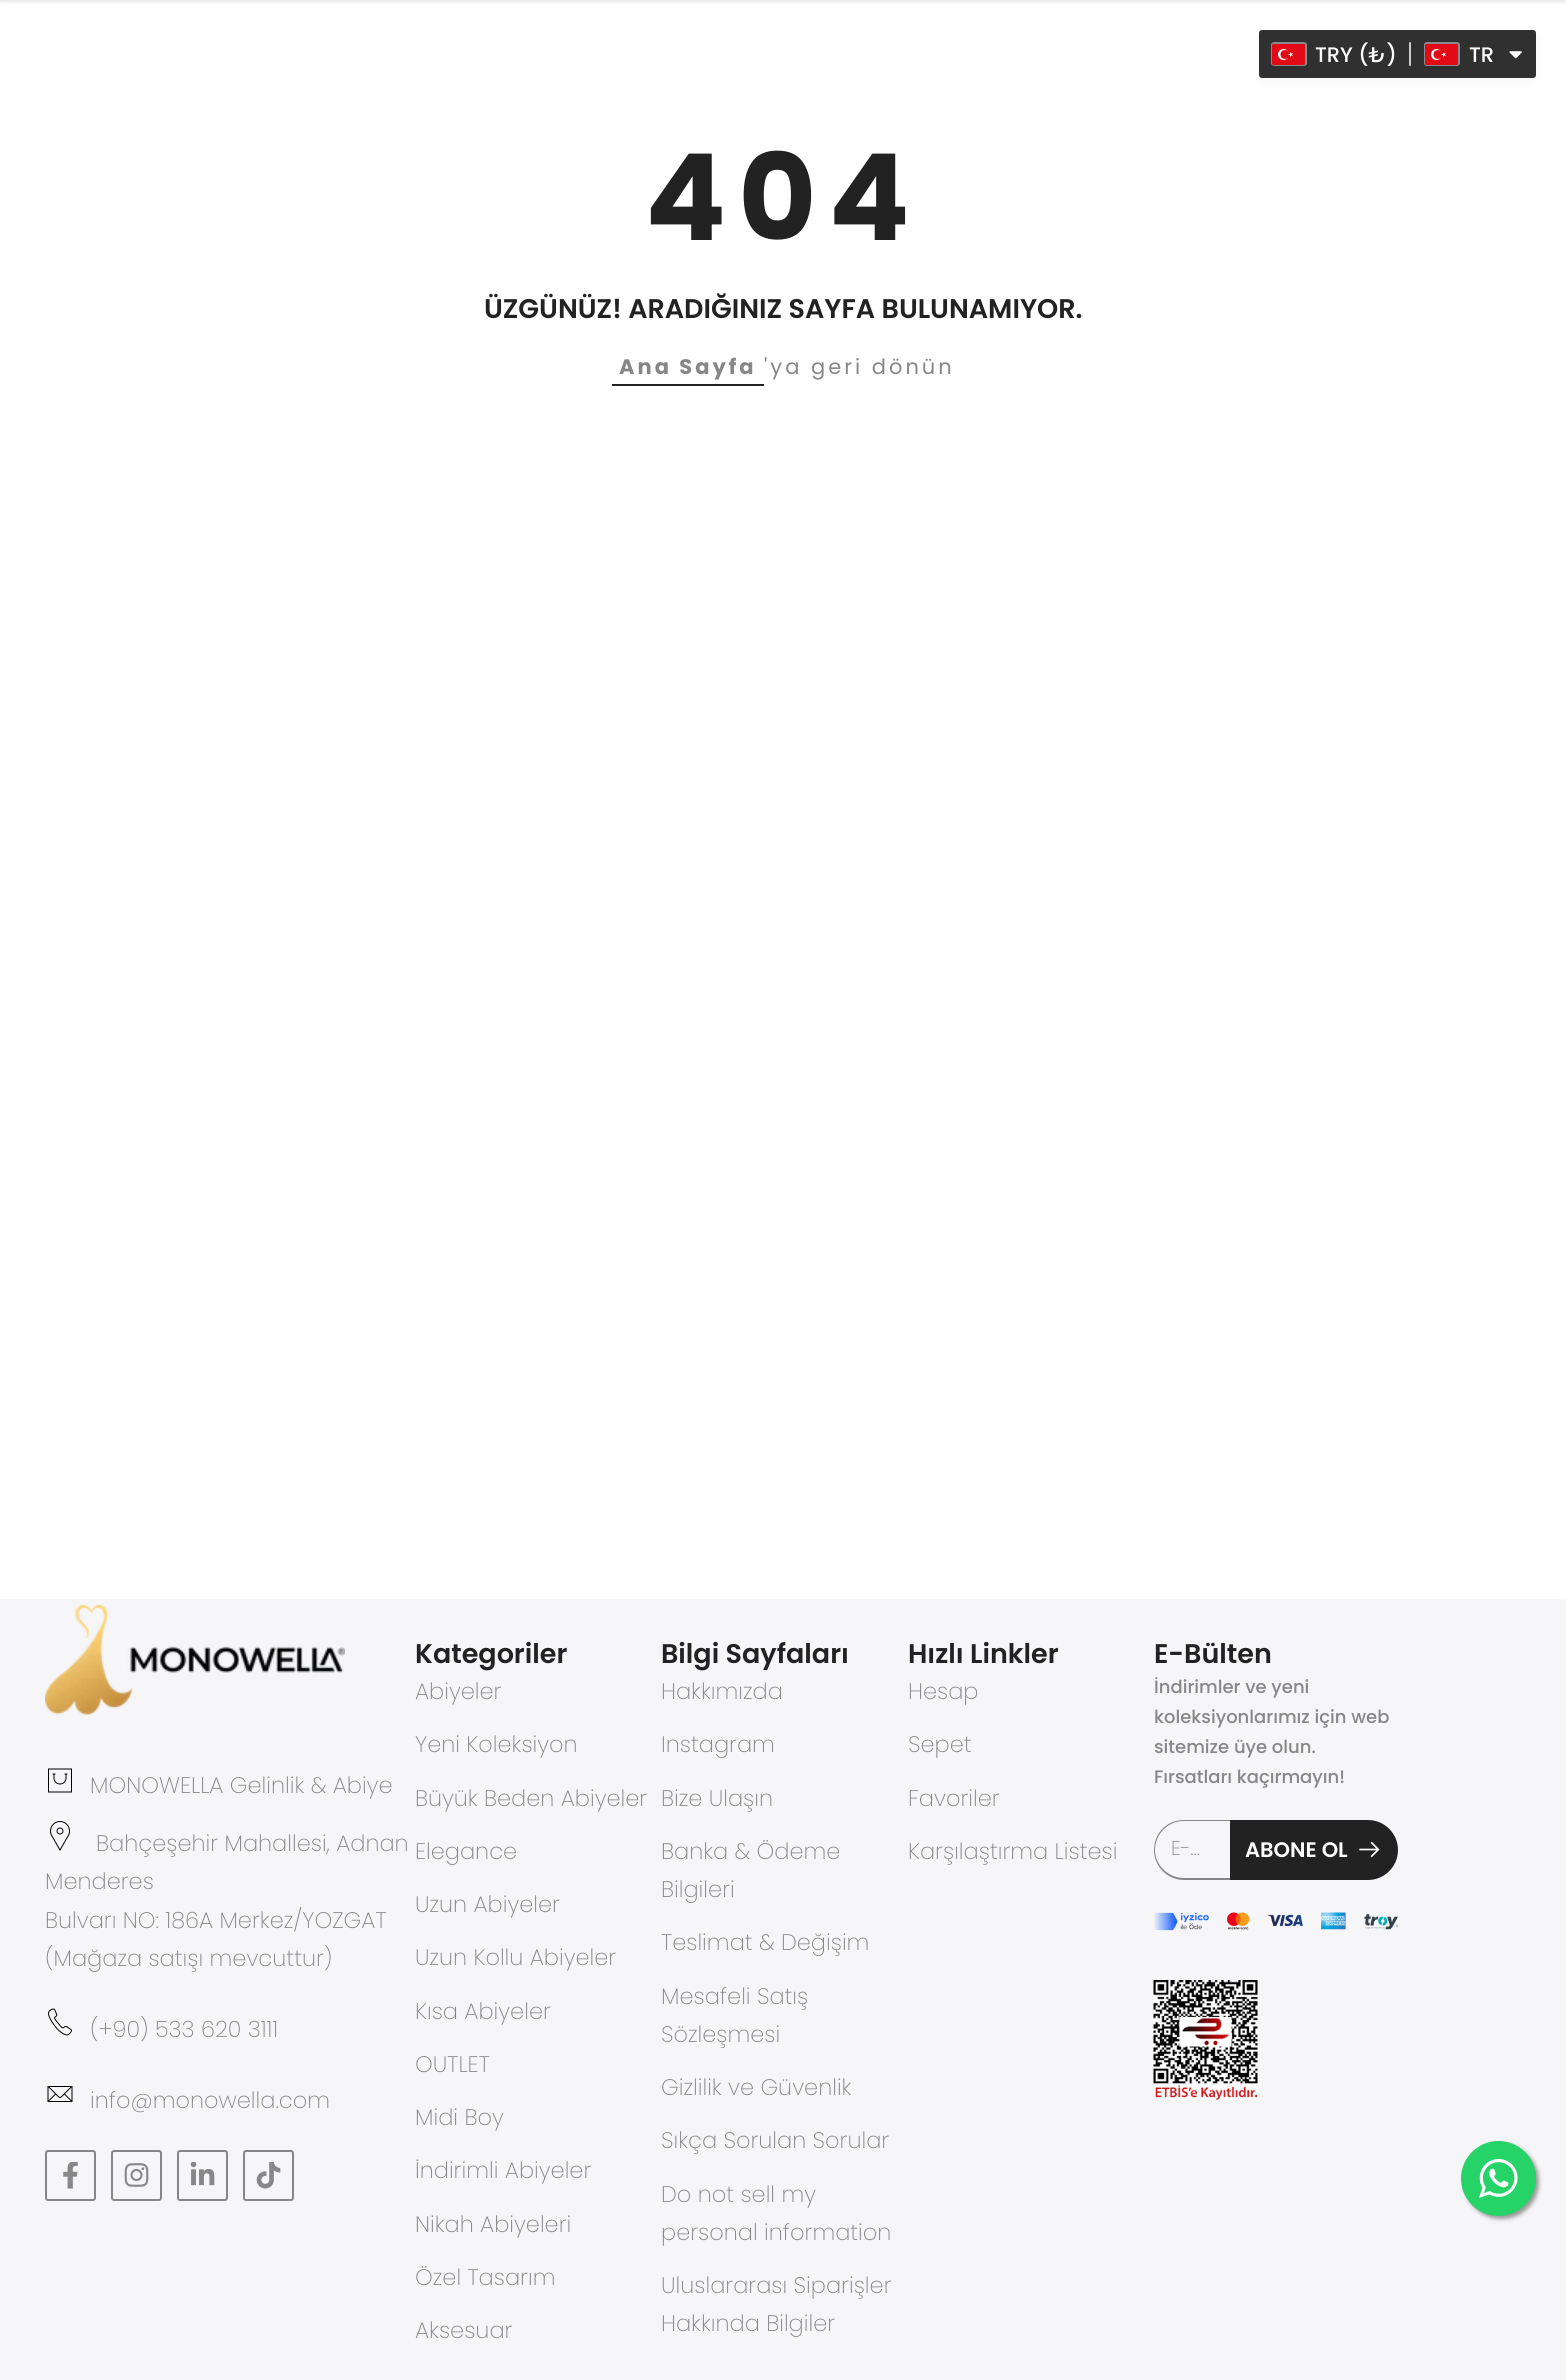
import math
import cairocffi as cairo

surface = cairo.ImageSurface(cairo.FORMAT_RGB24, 1566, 2380)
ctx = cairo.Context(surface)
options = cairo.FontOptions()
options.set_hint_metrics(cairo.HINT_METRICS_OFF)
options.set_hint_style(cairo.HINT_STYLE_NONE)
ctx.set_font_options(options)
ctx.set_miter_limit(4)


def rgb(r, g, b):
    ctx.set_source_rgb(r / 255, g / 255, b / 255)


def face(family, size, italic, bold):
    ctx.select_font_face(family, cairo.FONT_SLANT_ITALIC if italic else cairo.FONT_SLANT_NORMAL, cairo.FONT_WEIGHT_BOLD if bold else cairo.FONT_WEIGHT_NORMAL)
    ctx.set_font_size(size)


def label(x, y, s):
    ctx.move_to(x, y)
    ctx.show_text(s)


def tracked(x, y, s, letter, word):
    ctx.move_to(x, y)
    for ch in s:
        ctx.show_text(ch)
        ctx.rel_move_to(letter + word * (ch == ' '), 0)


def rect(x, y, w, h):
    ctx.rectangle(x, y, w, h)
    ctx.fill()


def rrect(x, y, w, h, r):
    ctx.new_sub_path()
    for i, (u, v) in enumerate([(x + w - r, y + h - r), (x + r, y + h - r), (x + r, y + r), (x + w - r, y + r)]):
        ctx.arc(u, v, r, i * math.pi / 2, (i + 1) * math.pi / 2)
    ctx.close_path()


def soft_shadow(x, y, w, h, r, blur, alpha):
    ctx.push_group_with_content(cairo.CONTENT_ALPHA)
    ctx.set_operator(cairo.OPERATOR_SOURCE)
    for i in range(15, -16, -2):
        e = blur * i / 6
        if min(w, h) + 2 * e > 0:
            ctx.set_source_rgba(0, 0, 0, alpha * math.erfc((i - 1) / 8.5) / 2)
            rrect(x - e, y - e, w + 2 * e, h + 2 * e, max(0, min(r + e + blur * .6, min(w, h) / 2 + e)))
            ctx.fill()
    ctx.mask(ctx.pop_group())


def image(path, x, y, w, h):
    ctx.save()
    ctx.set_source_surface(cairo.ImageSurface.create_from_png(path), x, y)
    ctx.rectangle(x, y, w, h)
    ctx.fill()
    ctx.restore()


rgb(255, 255, 255)
ctx.paint()
rgb(13, 13, 13)
soft_shadow(1260, 35, 275, 45, 1.5, 4.5, 0.05)
rgb(48, 48, 48)
rrect(1259, 30, 277, 48, 3)
ctx.fill()
rrect(1272, 43, 34, 22, 2)
rgb(137, 138, 139)
ctx.stroke()
rgb(227, 10, 23)
rrect(1272, 44, 33, 21, 1.5)
ctx.fill()
rgb(255, 255, 255)
ctx.arc(1283.5, 54.5, 5.5, 0, 2 * math.pi)
ctx.fill()
rgb(227, 10, 23)
ctx.arc(1285, 54.5, 4.5, 0, 2 * math.pi)
ctx.fill()
rgb(255, 255, 255)
ctx.new_path()
ctx.move_to(1288, 54.5)
ctx.line_to(1293, 56)
ctx.line_to(1290, 52)
ctx.line_to(1290, 57)
ctx.line_to(1293, 53)
ctx.close_path()
ctx.fill()
face('Poppins Medium', 21, 0, 0)
label(1315, 62, 'TRY (₺)')
image('image0.png', 1409, 42, 2, 24)
rrect(1425, 43, 34, 22, 2)
rgb(137, 138, 139)
ctx.stroke()
rgb(227, 10, 23)
rrect(1425, 44, 33, 21, 1.5)
ctx.fill()
rgb(255, 255, 255)
ctx.arc(1436.5, 54.5, 5.5, 0, 2 * math.pi)
ctx.fill()
rgb(227, 10, 23)
ctx.arc(1438, 54.5, 4.5, 0, 2 * math.pi)
ctx.fill()
rgb(255, 255, 255)
ctx.new_path()
ctx.move_to(1441, 54.5)
ctx.line_to(1446, 56)
ctx.line_to(1443, 52)
ctx.line_to(1443, 57)
ctx.line_to(1446, 53)
ctx.close_path()
ctx.fill()
label(1469, 62, 'TR')
image('image1.png', 1509, 51, 13, 8)
rgb(0, 0, 0)
soft_shadow(0, -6, 1566, 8, 0, 2, 0.1)
face('Poppins', 120, 0, 1)
rgb(34, 34, 34)
tracked(645, 240, '404', 12, 0)
face('Poppins SemiBold', 27, 0, 0)
label(484, 318, 'ÜZGÜNÜZ! ARADIĞINIZ SAYFA BULUNAMIYOR.')
face('Poppins', 21, 0, 1)
rgb(135, 135, 135)
tracked(619, 374, 'Ana Sayfa', 3, 0)
rgb(34, 34, 34)
rect(612, 384, 152, 2)
face('Poppins', 21, 0, 0)
rgb(135, 135, 135)
tracked(764, 374, '\'ya geri dönün', 3, 0)
rgb(246, 246, 248)
rect(0, 1599, 1566, 781)
face('Poppins SemiBold', 27, 0, 0)
rgb(34, 34, 34)
label(415, 1663, 'Kategoriler')
face('Poppins Light', 22.5, 0, 0)
rgb(135, 135, 135)
label(415, 1699, 'Abiyeler')
label(415, 1752, 'Yeni Koleksiyon')
label(415, 1806, 'Büyük Beden Abiyeler')
label(415, 1859, 'Elegance')
label(415, 1912, 'Uzun Abiyeler')
label(415, 1965, 'Uzun Kollu Abiyeler')
label(415, 2019, 'Kısa Abiyeler')
label(415, 2072, 'OUTLET')
label(415, 2125, 'Midi Boy')
label(415, 2178, 'İndirimli Abiyeler')
label(415, 2232, 'Nikah Abiyeleri')
label(415, 2285, 'Özel Tasarım')
label(415, 2338, 'Aksesuar')
face('Poppins SemiBold', 27, 0, 0)
rgb(34, 34, 34)
label(661, 1663, 'Bilgi Sayfaları')
face('Poppins Light', 22.5, 0, 0)
rgb(135, 135, 135)
label(661, 1699, 'Hakkımızda')
label(661, 1752, 'Instagram')
label(661, 1806, 'Bize Ulaşın')
label(661, 1859, 'Banka & Ödeme')
label(661, 1897, 'Bilgileri')
label(661, 1950, 'Teslimat & Değişim')
label(661, 2004, 'Mesafeli Satış')
label(661, 2042, 'Sözleşmesi')
label(661, 2095, 'Gizlilik ve Güvenlik')
label(661, 2148, 'Sıkça Sorulan Sorular')
label(661, 2202, 'Do not sell my')
label(661, 2240, 'personal information')
label(661, 2293, 'Uluslararası Siparişler')
label(661, 2331, 'Hakkında Bilgiler')
face('Poppins SemiBold', 27, 0, 0)
rgb(34, 34, 34)
label(908, 1663, 'Hızlı Linkler')
face('Poppins Light', 22.5, 0, 0)
rgb(135, 135, 135)
label(908, 1699, 'Hesap')
label(908, 1752, 'Sepet')
label(908, 1806, 'Favoriler')
label(908, 1859, 'Karşılaştırma Listesi')
face('Poppins SemiBold', 27, 0, 0)
rgb(34, 34, 34)
label(1154, 1663, 'E-Bülten')
face('Poppins Medium', 18, 0, 0)
rgb(135, 135, 135)
label(1154, 1693, 'İndirimler ve yeni')
label(1154, 1723, 'koleksiyonlarımız için web')
label(1154, 1753, 'sitemize üye olun.')
label(1154, 1783, 'Fırsatları kaçırmayın!')
ctx.new_path()
ctx.move_to(1184, 1820)
ctx.curve_to(1167, 1820, 1154, 1833, 1154, 1850)
ctx.curve_to(1154, 1866, 1167, 1880, 1184, 1880)
ctx.line_to(1230, 1880)
ctx.line_to(1230, 1878)
ctx.line_to(1184, 1878)
ctx.curve_to(1168, 1878, 1155, 1865, 1155, 1850)
ctx.curve_to(1155, 1834, 1168, 1821, 1184, 1821)
ctx.line_to(1230, 1821)
ctx.line_to(1230, 1820)
ctx.close_path()
ctx.fill()
face('Poppins Light', 20, 0, 0)
label(1171, 1855, 'E-…')
rgb(34, 34, 34)
ctx.new_path()
ctx.move_to(1230, 1820)
ctx.line_to(1368, 1820)
ctx.curve_to(1384.5, 1820, 1398, 1833.5, 1398, 1850)
ctx.curve_to(1398, 1866.5, 1384.5, 1880, 1368, 1880)
ctx.line_to(1230, 1880)
ctx.close_path()
ctx.fill()
face('Poppins SemiBold', 21, 0, 0)
rgb(255, 255, 255)
label(1245, 1857, 'ABONE OL')
image('image2.png', 1359, 1841, 21, 17)
image('image3.png', 1154, 1912, 244, 19)
image('image4.png', 1153, 1980, 106, 120)
image('image5.png', 45, 1605, 300, 110)
image('image6.png', 48, 1768, 24, 25)
face('Poppins Light', 22.5, 0, 0)
rgb(135, 135, 135)
label(90, 1793, 'MONOWELLA Gelinlik & Abiye')
image('image7.png', 50, 1821, 20, 30)
label(96, 1851, 'Bahçeşehir Mahallesi, Adnan')
label(45, 1889, 'Menderes')
label(45, 1928, 'Bulvarı NO: 186A Merkez/YOZGAT')
label(45, 1966, '(Mağaza satışı mevcuttur)')
image('image8.png', 48, 2008, 24, 28)
label(90, 2037, '(+90) 533 620 3111')
image('image9.png', 47, 2086, 26, 16)
label(90, 2108, 'info@monowella.com')
rrect(46, 2151, 49, 49, 2)
ctx.stroke()
image('image10.png', 63, 2162, 15, 27)
rrect(112, 2151, 49, 49, 2)
ctx.stroke()
image('image11.png', 124, 2163, 25, 24)
rrect(178, 2151, 49, 49, 2)
ctx.stroke()
image('image12.png', 190, 2162, 25, 24)
rrect(244, 2151, 49, 49, 2)
ctx.stroke()
image('image13.png', 256, 2162, 25, 27)
rgb(153, 153, 153)
soft_shadow(1464, 2144, 75, 75, 37.5, 2, 1)
rgb(37, 211, 102)
ctx.arc(1498.5, 2178.5, 37.5, 0, 2 * math.pi)
ctx.fill()
image('image14.png', 1479, 2159, 39, 39)
surface.write_to_png('render.png')
